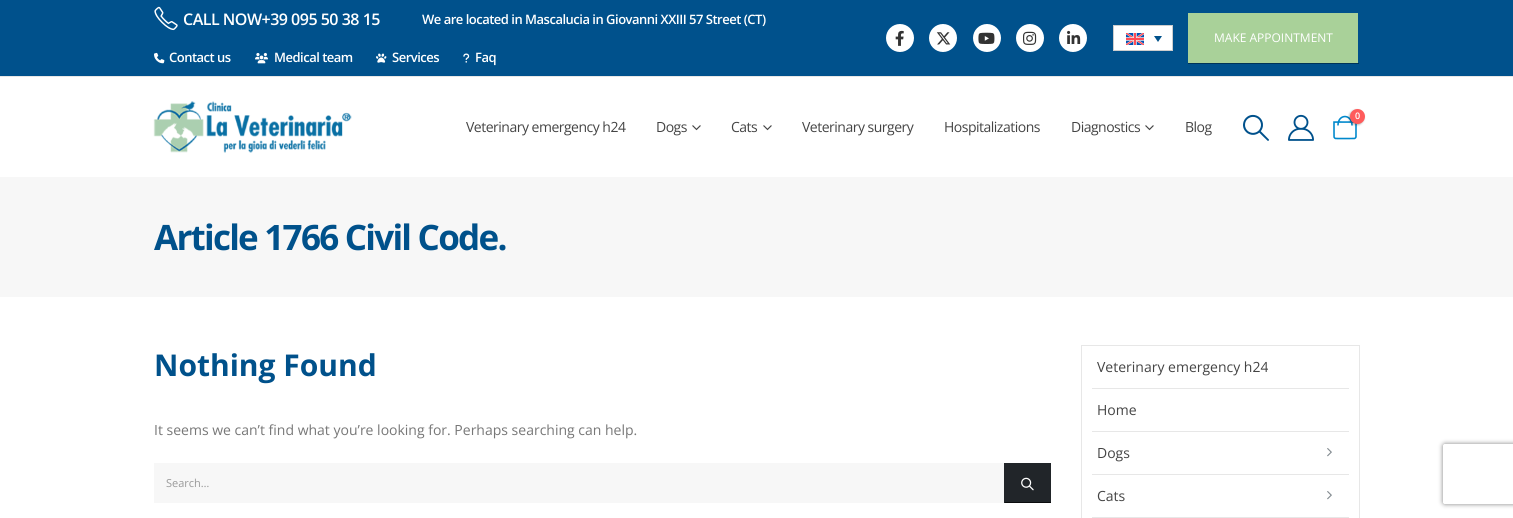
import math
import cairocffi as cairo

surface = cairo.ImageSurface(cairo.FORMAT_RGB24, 1513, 518)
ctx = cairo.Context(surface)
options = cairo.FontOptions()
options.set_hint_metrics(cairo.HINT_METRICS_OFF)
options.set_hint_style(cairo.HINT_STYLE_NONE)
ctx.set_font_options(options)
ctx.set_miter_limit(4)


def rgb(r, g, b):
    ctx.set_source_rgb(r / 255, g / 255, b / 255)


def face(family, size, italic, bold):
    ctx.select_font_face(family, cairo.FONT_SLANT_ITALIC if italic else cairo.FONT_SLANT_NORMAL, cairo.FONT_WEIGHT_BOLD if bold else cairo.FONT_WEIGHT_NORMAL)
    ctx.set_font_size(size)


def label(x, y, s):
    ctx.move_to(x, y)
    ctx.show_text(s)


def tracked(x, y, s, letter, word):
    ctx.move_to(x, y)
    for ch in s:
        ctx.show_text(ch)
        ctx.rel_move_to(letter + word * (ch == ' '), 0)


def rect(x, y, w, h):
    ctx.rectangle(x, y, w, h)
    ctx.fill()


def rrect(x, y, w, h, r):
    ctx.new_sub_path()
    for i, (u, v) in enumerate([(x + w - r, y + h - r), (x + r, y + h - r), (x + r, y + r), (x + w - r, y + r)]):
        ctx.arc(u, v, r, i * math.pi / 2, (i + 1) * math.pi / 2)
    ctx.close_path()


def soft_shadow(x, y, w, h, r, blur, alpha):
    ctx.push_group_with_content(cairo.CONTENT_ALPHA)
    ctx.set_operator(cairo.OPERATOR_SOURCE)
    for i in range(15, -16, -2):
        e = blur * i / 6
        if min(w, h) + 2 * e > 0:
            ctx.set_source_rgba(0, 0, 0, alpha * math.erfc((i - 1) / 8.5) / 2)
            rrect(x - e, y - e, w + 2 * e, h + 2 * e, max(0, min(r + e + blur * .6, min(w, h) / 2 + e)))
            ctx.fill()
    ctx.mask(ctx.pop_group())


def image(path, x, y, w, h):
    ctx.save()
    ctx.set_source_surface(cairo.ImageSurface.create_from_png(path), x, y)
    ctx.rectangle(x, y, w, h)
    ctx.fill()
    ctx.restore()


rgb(255, 255, 255)
ctx.paint()
rgb(0, 81, 140)
rect(0, 0, 1513, 76)
rgb(231, 231, 231)
rect(0, 76, 1513, 1)
image('image0.png', 154, 6, 24, 25)
face('Open Sans SemiBold', 16, 0, 0)
rgb(255, 255, 255)
tracked(183, 25, 'CALL NOW+39 095 50 38 15', -0.5, 0)
face('Open Sans SemiBold', 13, 0, 0)
tracked(422, 24, 'We are located in Mascalucia in Giovanni XXIII 57 Street (CT)', -0.5, 0)
image('image1.png', 154, 52, 11, 12)
tracked(169, 62, 'Contact us', -0.5, 0)
image('image2.png', 255, 52, 13, 12)
tracked(274, 62, 'Medical team', -0.5, 0)
image('image3.png', 376, 53, 11, 10)
tracked(392, 62, 'Services', -0.5, 0)
image('image4.png', 463, 53, 7, 10)
tracked(475, 62, 'Faq', -0.5, 0)
ctx.new_path()
ctx.arc(900, 38, 14, 0, 2 * math.pi)
ctx.fill()
image('image5.png', 895, 30, 9, 16)
ctx.arc(943, 38, 14, 0, 2 * math.pi)
ctx.fill()
image('image6.png', 936, 32, 15, 13)
ctx.arc(987, 38, 14, 0, 2 * math.pi)
ctx.fill()
image('image7.png', 978, 32, 17, 12)
ctx.arc(1030, 38, 14, 0, 2 * math.pi)
ctx.fill()
image('image8.png', 1023, 31, 14, 14)
ctx.arc(1073, 38, 14, 0, 2 * math.pi)
ctx.fill()
image('image9.png', 1067, 30, 14, 14)
ctx.rectangle(1113.5, 25.5, 59, 25)
ctx.fill_preserve()
rgb(205, 205, 205)
ctx.set_line_width(1)
ctx.stroke()
image('image10.png', 1126, 33, 18, 12)
rgb(0, 81, 139)
ctx.new_path()
ctx.move_to(1154, 36)
ctx.line_to(1162, 36)
ctx.line_to(1158, 42)
ctx.close_path()
ctx.fill()
rgb(169, 209, 153)
rect(1188, 13, 170, 50)
rgb(0, 52, 89)
rect(1187, 63, 172, 1)
rgb(0, 81, 139)
rect(1187, 63, 1, 1)
face('Open Sans', 12, 0, 0)
rgb(255, 255, 255)
label(1214, 42, 'MAKE APPOINTMENT')
image('image11.png', 153, 101, 199, 52)
face('Open Sans', 14, 0, 0)
rgb(68, 68, 68)
tracked(466, 132, 'Veterinary emergency h24', -0.5, 0)
tracked(656, 132, 'Dogs', -0.5, 0)
image('image12.png', 692, 125, 9, 6)
tracked(731, 132, 'Cats', -0.5, 0)
image('image12.png', 763, 125, 9, 6)
tracked(802, 132, 'Veterinary surgery', -0.5, 0)
tracked(944, 132, 'Hospitalizations', -0.5, 0)
tracked(1071, 132, 'Diagnostics', -0.5, 0)
image('image12.png', 1145, 125, 9, 6)
tracked(1185, 132, 'Blog', -0.5, 0)
image('image13.png', 1243, 114, 26, 27)
image('image14.png', 1288, 114, 26, 27)
image('image15.png', 1333, 115, 24, 25)
rgb(0, 0, 0)
soft_shadow(1349, 110, 15, 15, 7.5, 1, 0.3)
rgb(255, 91, 91)
ctx.arc(1357.5, 116.5, 7.5, 0, 2 * math.pi)
ctx.fill()
face('Open Sans SemiBold', 9, 0, 0)
rgb(255, 255, 255)
label(1355, 119, '0')
rgb(247, 247, 247)
rect(0, 177, 1513, 120)
face('Open Sans', 35, 0, 1)
rgb(0, 81, 139)
tracked(154, 250, 'Article 1766 Civil Code.', -1.75, 0)
face('Open Sans', 30, 0, 1)
label(154, 376, 'Nothing Found')
face('Open Sans', 14, 0, 0)
rgb(119, 119, 119)
label(154, 435, 'It seems we can’t find what you’re looking for. Perhaps searching can help.')
rgb(247, 247, 247)
rect(154, 463, 850, 40)
face('Open Sans', 11, 0, 0)
rgb(153, 153, 153)
label(166, 487, 'Search…')
rgb(33, 37, 41)
rect(1005, 463, 46, 39)
rgb(11, 12, 13)
rect(1004, 502, 47, 1)
rgb(33, 37, 41)
rect(1004, 463, 1, 40)
image('image16.png', 1021, 477, 13, 14)
ctx.rectangle(1081.5, 345.5, 278, 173)
rgb(231, 231, 231)
ctx.stroke()
face('Open Sans', 14, 0, 0)
rgb(68, 68, 68)
label(1097, 372, 'Veterinary emergency h24')
rgb(231, 231, 231)
rect(1092, 388, 257, 1)
rgb(68, 68, 68)
label(1097, 415, 'Home')
rgb(231, 231, 231)
rect(1092, 431, 257, 1)
rgb(68, 68, 68)
label(1097, 458, 'Dogs')
image('image17.png', 1327, 448, 5, 9)
rgb(231, 231, 231)
rect(1092, 474, 257, 1)
rgb(68, 68, 68)
label(1097, 501, 'Cats')
image('image17.png', 1327, 491, 5, 9)
rgb(231, 231, 231)
rect(1092, 517, 257, 1)
ctx.save()
ctx.set_fill_rule(cairo.FILL_RULE_EVEN_ODD)
ctx.new_path()
ctx.move_to(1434, 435)
ctx.line_to(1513, 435)
ctx.line_to(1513, 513)
ctx.line_to(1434, 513)
ctx.close_path()
ctx.move_to(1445, 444)
ctx.line_to(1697, 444)
ctx.curve_to(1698, 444, 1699, 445, 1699, 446)
ctx.line_to(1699, 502)
ctx.curve_to(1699, 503, 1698, 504, 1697, 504)
ctx.line_to(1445, 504)
ctx.curve_to(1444, 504, 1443, 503, 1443, 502)
ctx.line_to(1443, 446)
ctx.curve_to(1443, 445, 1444, 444, 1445, 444)
ctx.close_path()
ctx.clip()
rgb(128, 128, 128)
soft_shadow(1443, 444, 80, 60, 2, 2.5, 1)
ctx.restore()
surface.write_to_png('render.png')
